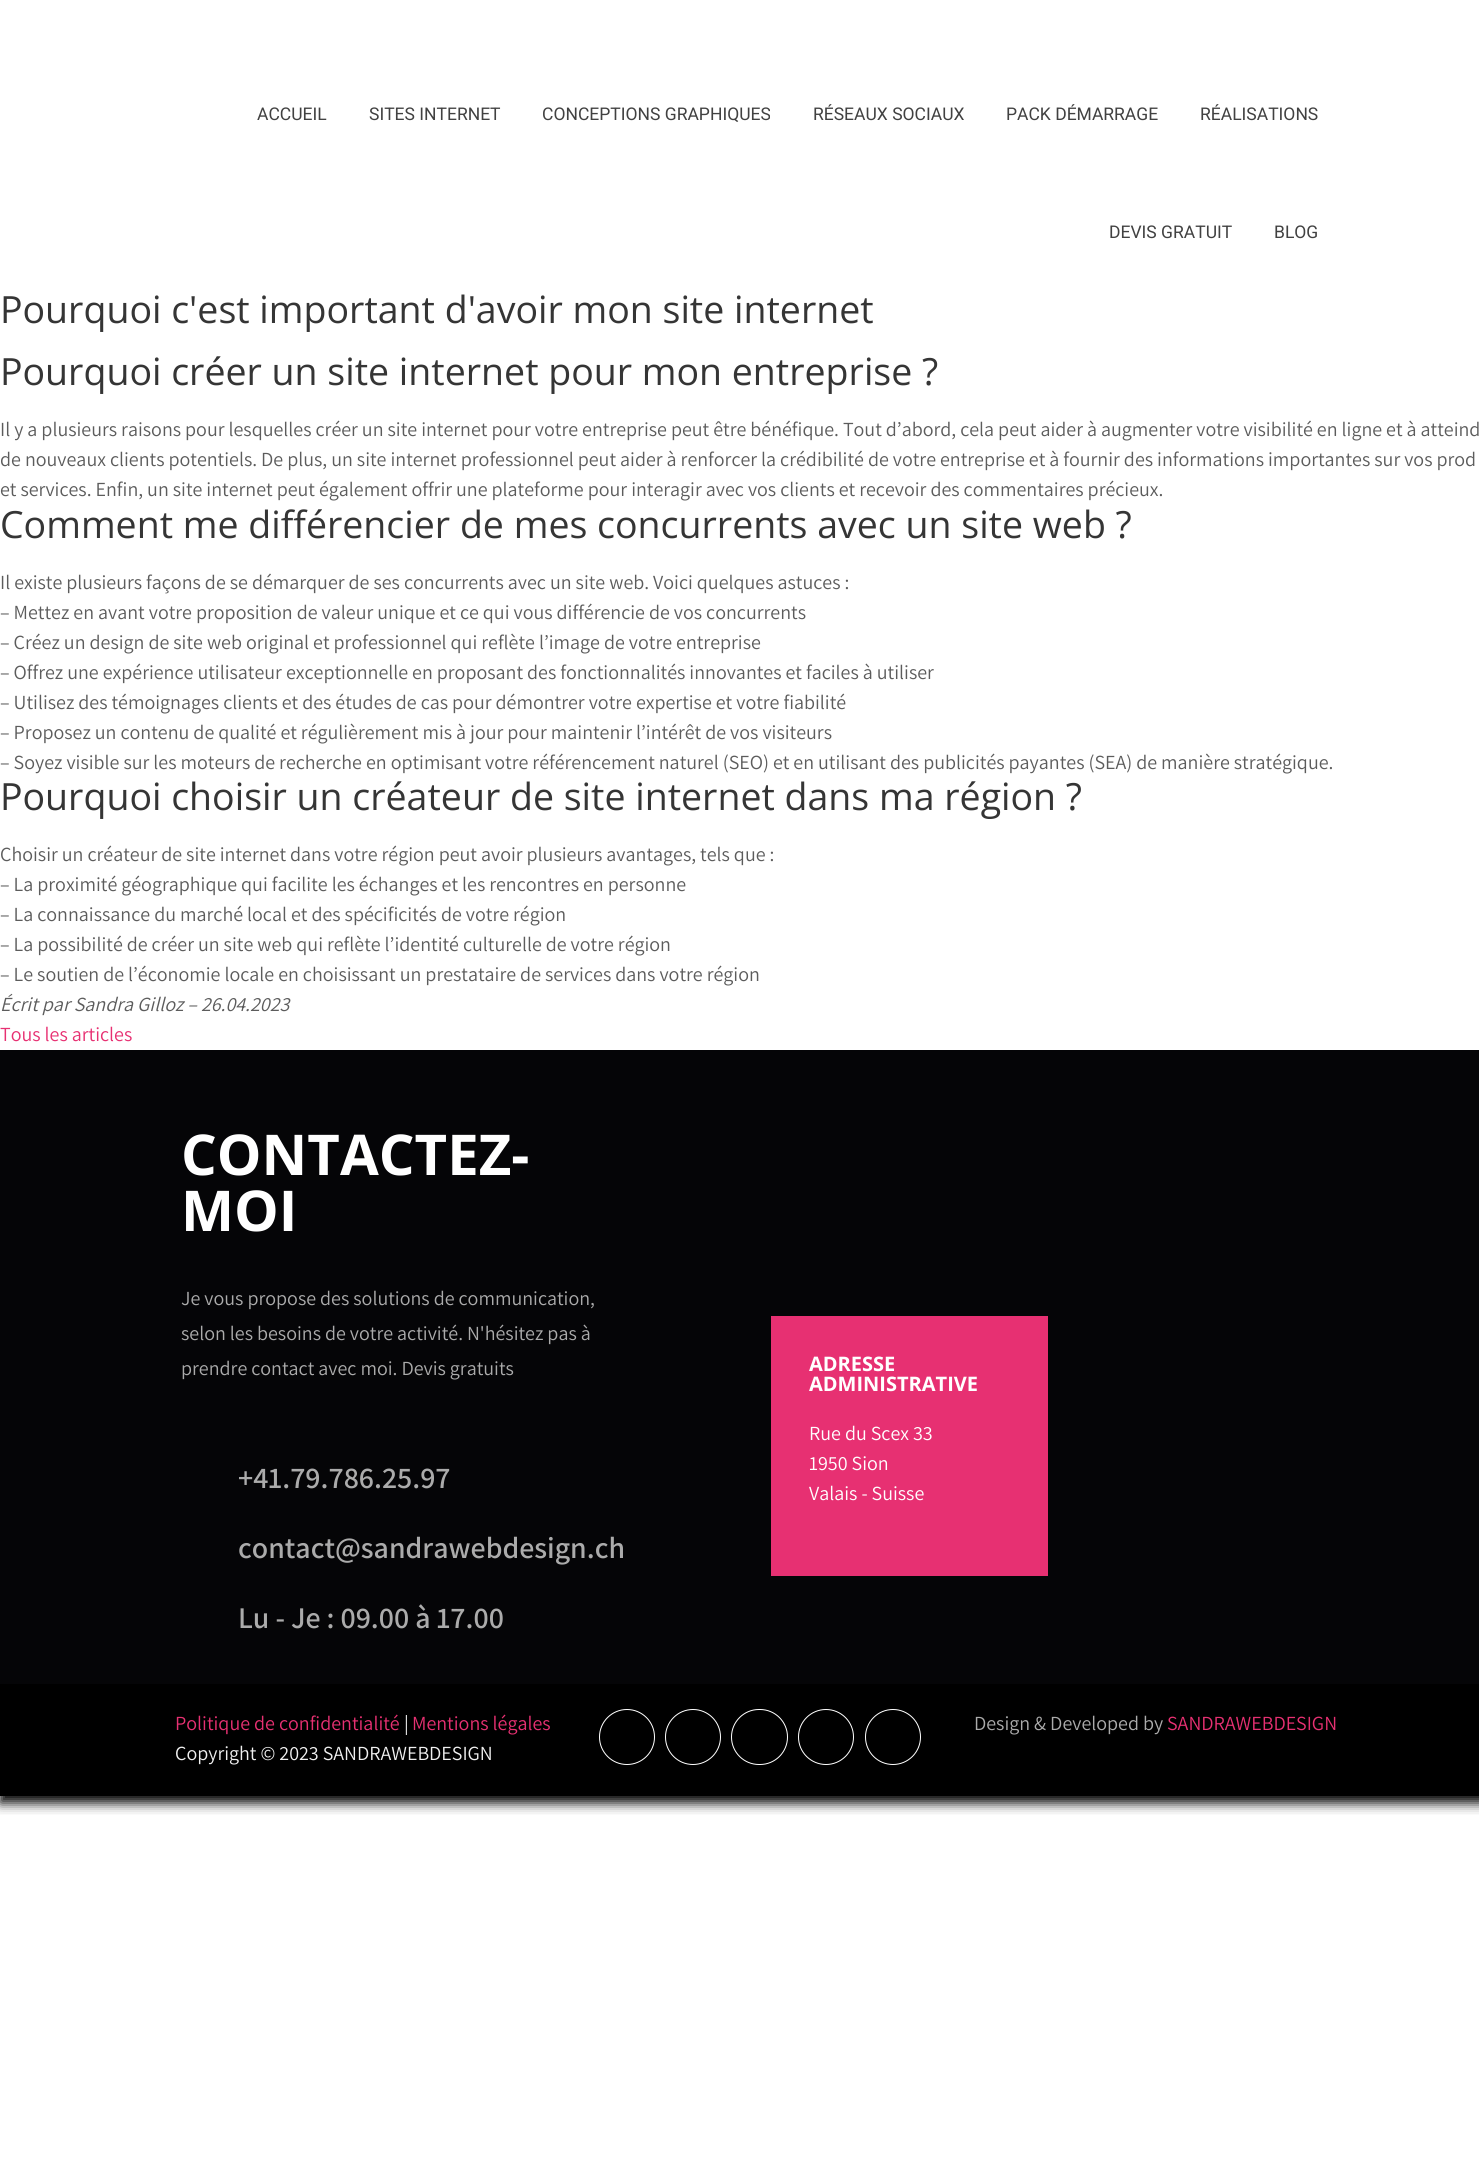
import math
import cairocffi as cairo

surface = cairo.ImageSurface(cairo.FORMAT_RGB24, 1479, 2163)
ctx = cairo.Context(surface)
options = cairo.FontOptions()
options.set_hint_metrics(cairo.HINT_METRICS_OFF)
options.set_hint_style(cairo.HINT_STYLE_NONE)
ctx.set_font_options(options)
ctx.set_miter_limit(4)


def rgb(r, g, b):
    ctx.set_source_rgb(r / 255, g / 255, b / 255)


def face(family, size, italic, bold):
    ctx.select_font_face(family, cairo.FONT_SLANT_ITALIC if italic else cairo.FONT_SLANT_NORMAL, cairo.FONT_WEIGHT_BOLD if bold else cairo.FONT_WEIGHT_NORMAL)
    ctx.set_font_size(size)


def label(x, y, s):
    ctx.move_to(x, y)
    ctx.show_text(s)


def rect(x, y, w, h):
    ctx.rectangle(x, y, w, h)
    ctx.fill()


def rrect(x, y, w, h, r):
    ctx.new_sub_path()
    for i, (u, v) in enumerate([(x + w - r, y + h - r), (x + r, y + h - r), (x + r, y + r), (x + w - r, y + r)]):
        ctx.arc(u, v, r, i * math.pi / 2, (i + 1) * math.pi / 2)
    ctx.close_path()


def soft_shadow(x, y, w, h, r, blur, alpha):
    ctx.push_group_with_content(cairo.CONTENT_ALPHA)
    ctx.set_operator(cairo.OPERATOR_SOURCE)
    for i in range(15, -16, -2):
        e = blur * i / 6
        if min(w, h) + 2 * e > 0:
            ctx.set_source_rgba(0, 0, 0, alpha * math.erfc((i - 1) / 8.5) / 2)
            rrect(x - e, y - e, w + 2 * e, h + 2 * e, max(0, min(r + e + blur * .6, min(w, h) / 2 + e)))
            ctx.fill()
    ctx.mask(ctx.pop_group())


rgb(255, 255, 255)
ctx.paint()
ctx.save()
ctx.rectangle(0, 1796, 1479, 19)
ctx.clip()
rgb(0, 0, 0)
soft_shadow(0, 6, 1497, 1797, 0, 6, 1)
ctx.restore()
face('Roboto', 17.5, 0, 0)
rgb(65, 65, 65)
label(257, 120, 'ACCUEIL')
label(369, 120, 'SITES INTERNET')
label(542, 120, 'CONCEPTIONS GRAPHIQUES')
label(813, 120, 'RÉSEAUX SOCIAUX')
label(1006, 120, 'PACK DÉMARRAGE')
label(1200, 120, 'RÉALISATIONS')
label(1109, 238, 'DEVIS GRATUIT')
label(1274, 238, 'BLOG')
face('Open Sans', 37.5, 0, 0)
rgb(53, 53, 53)
label(0, 323, 'Pourquoi c\'est important d\'avoir mon site internet')
label(0, 385, 'Pourquoi créer un site internet pour mon entreprise ?')
face('Assistant', 20, 0, 0)
rgb(92, 92, 92)
label(0, 436, 'Il y a plusieurs raisons pour lesquelles créer un site internet pour votre entreprise peut être bénéfique. Tout d’abord, cela peut aider à augmenter votre visibilité en ligne et à atteind')
label(0, 466, 'de nouveaux clients potentiels. De plus, un site internet professionnel peut aider à renforcer la crédibilité de votre entreprise et à fournir des informations importantes sur vos prod')
label(0, 496, 'et services. Enfin, un site internet peut également offrir une plateforme pour interagir avec vos clients et recevoir des commentaires précieux.')
face('Open Sans', 37.5, 0, 0)
rgb(53, 53, 53)
label(0, 538, 'Comment me différencier de mes concurrents avec un site web ?')
face('Assistant', 20, 0, 0)
rgb(92, 92, 92)
label(0, 589, 'Il existe plusieurs façons de se démarquer de ses concurrents avec un site web. Voici quelques astuces :')
label(0, 619, '– Mettez en avant votre proposition de valeur unique et ce qui vous différencie de vos concurrents')
label(0, 649, '– Créez un design de site web original et professionnel qui reflète l’image de votre entreprise')
label(0, 679, '– Offrez une expérience utilisateur exceptionnelle en proposant des fonctionnalités innovantes et faciles à utiliser')
label(0, 709, '– Utilisez des témoignages clients et des études de cas pour démontrer votre expertise et votre fiabilité')
label(0, 739, '– Proposez un contenu de qualité et régulièrement mis à jour pour maintenir l’intérêt de vos visiteurs')
label(0, 769, '– Soyez visible sur les moteurs de recherche en optimisant votre référencement naturel (SEO) et en utilisant des publicités payantes (SEA) de manière stratégique.')
face('Open Sans', 37.5, 0, 0)
rgb(53, 53, 53)
label(0, 810, 'Pourquoi choisir un créateur de site internet dans ma région ?')
face('Assistant', 20, 0, 0)
rgb(92, 92, 92)
label(0, 861, 'Choisir un créateur de site internet dans votre région peut avoir plusieurs avantages, tels que :')
label(0, 891, '– La proximité géographique qui facilite les échanges et les rencontres en personne')
label(0, 921, '– La connaissance du marché local et des spécificités de votre région')
label(0, 951, '– La possibilité de créer un site web qui reflète l’identité culturelle de votre région')
label(0, 981, '– Le soutien de l’économie locale en choisissant un prestataire de services dans votre région')
face('Assistant', 20, 1, 0)
label(0, 1011, 'Écrit par Sandra Gilloz – 26.04.2023')
face('Assistant', 20, 0, 0)
rgb(231, 48, 114)
label(0, 1041, 'Tous les articles')
rgb(5, 5, 7)
rect(0, 1050, 1479, 634)
face('Open Sans', 56.25, 0, 1)
rgb(255, 255, 255)
label(181, 1175, 'CONTACTEZ-')
label(181, 1231, 'MOI')
face('Assistant', 20, 0, 0)
rgb(171, 171, 171)
label(181, 1305, 'Je vous propose des solutions de communication,')
label(181, 1340, 'selon les besoins de votre activité. N\'hésitez pas à')
label(181, 1375, 'prendre contact avec moi. Devis gratuits')
face('Assistant SemiBold', 30, 0, 0)
label(238, 1488, '+41.79.786.25.97')
label(238, 1558, 'contact@sandrawebdesign.ch')
label(238, 1628, 'Lu - Je : 09.00 à 17.00')
rgb(231, 48, 114)
rect(771, 1316, 277, 260)
face('Open Sans', 20, 0, 1)
rgb(255, 255, 255)
label(809, 1371, 'ADRESSE')
label(809, 1391, 'ADMINISTRATIVE')
face('Assistant', 20, 0, 0)
label(809, 1440, 'Rue du Scex 33')
label(809, 1470, '1950 Sion')
label(809, 1500, 'Valais - Suisse')
rgb(0, 0, 0)
rect(0, 1684, 1479, 112)
rgb(231, 48, 114)
label(175, 1730, 'Politique de confidentialité')
rgb(240, 240, 240)
label(404, 1730, '|')
rgb(231, 48, 114)
label(412, 1730, 'Mentions légales')
rgb(240, 240, 240)
label(175, 1760, 'Copyright © 2023 SANDRAWEBDESIGN')
ctx.new_path()
ctx.arc(627, 1737, 27.5, 0, 2 * math.pi)
rgb(255, 255, 255)
ctx.set_line_width(1)
ctx.stroke()
ctx.arc(693, 1737, 27.5, 0, 2 * math.pi)
ctx.stroke()
rrect(731.5, 1709.5, 56, 55, 27.5)
ctx.stroke()
ctx.arc(826, 1737, 27.5, 0, 2 * math.pi)
ctx.stroke()
ctx.arc(893, 1737, 27.5, 0, 2 * math.pi)
ctx.stroke()
rgb(171, 171, 171)
label(974, 1730, 'Design & Developed by')
rgb(231, 48, 114)
label(1167, 1730, 'SANDRAWEBDESIGN')
surface.write_to_png('render.png')
